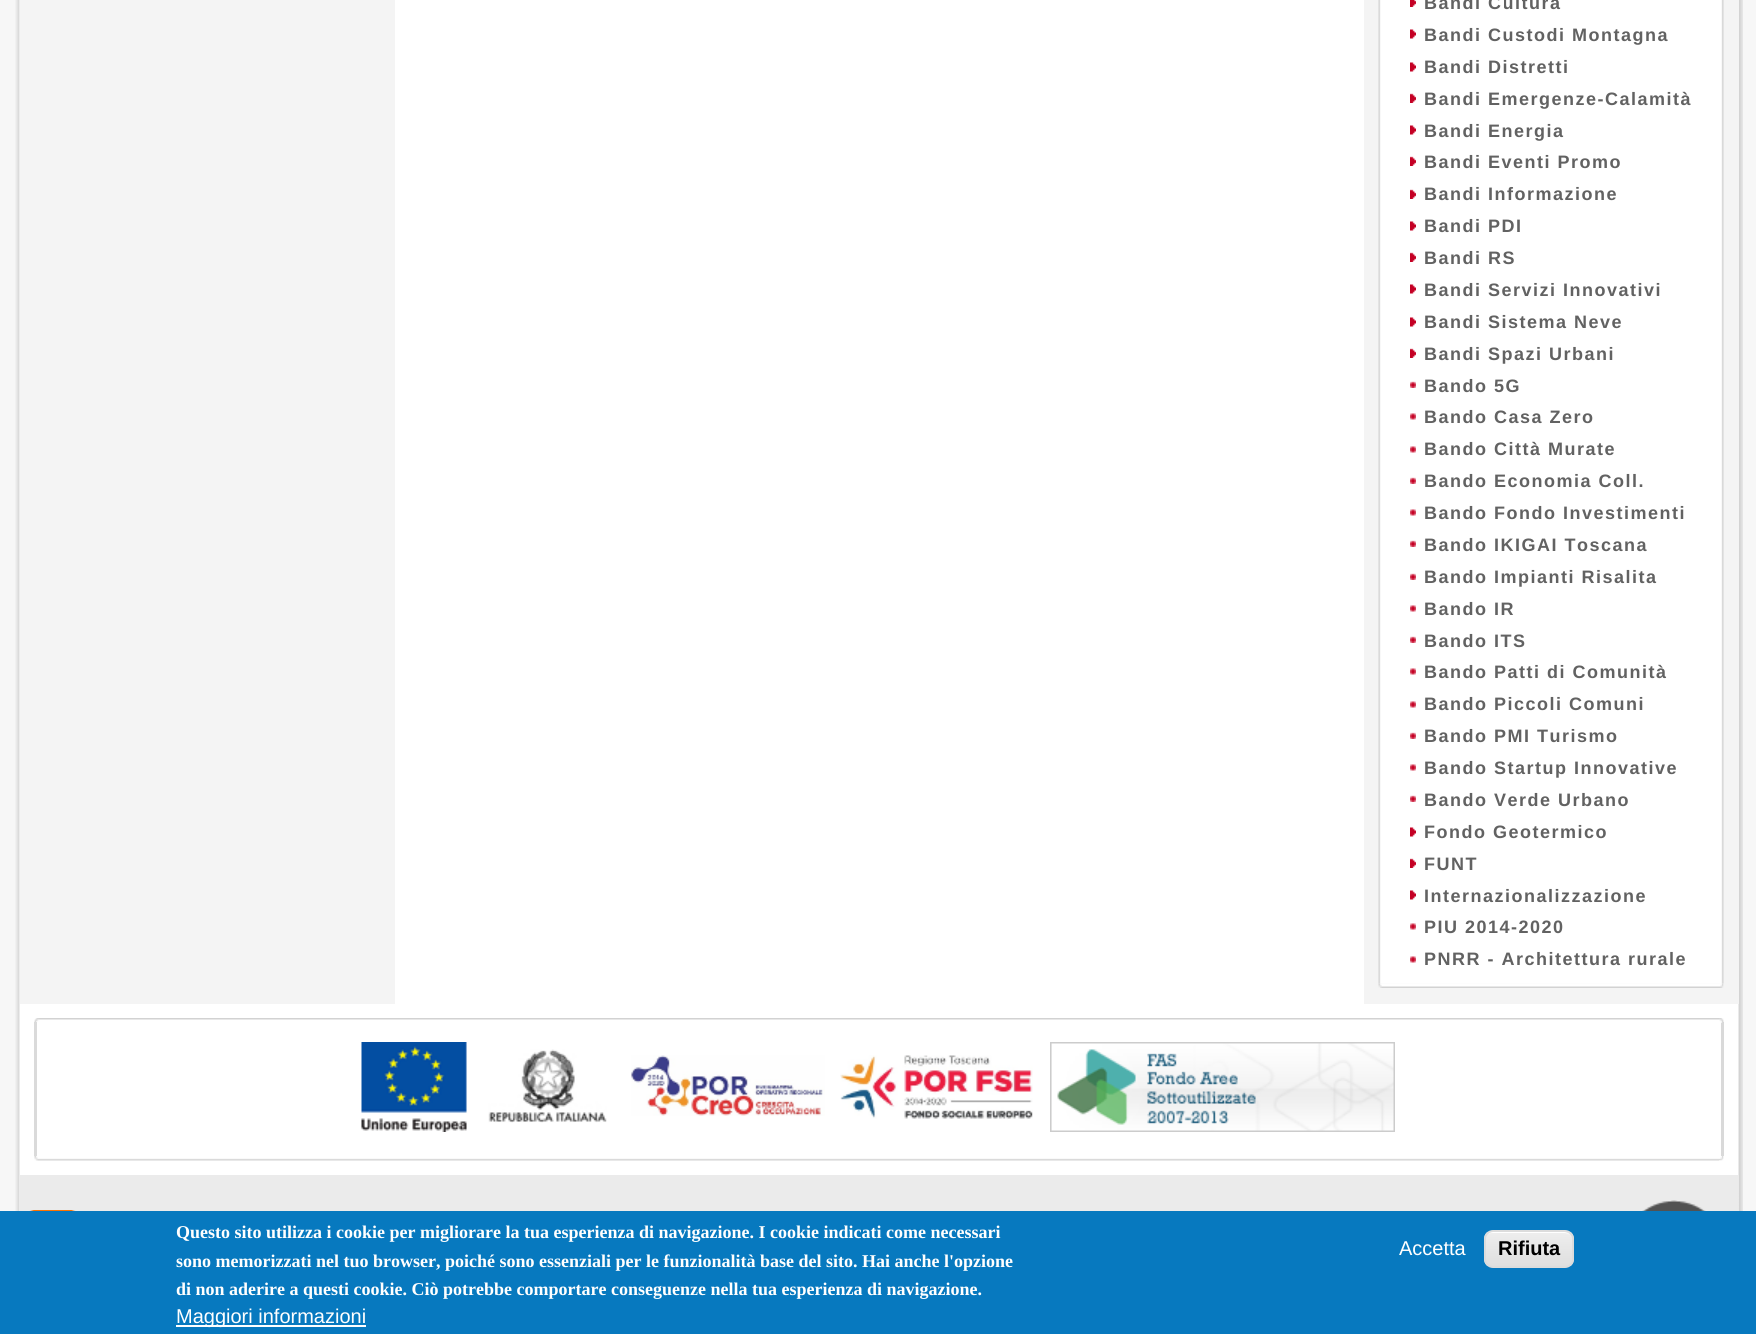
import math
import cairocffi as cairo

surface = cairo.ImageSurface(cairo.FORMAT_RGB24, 1756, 1334)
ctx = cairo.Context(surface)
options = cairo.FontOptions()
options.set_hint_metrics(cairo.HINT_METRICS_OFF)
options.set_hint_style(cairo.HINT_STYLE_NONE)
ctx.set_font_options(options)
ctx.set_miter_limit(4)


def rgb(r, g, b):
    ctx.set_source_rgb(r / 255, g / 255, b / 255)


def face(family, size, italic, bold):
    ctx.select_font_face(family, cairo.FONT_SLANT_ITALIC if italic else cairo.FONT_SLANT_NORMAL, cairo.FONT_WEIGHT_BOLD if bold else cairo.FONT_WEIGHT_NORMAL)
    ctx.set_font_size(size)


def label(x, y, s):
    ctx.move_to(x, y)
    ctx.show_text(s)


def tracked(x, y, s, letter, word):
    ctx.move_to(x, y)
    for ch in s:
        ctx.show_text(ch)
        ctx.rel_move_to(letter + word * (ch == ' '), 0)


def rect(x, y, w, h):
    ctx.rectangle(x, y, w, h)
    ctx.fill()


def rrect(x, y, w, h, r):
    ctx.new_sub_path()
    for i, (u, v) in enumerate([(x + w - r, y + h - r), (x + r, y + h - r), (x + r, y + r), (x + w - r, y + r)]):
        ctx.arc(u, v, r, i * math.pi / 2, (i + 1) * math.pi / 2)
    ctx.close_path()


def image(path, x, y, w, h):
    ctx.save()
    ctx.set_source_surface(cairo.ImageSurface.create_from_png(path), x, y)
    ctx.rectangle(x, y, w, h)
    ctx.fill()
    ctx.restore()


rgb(247, 247, 247)
ctx.paint()
image('image0.png', 15, 0, 1695, 1211)
rgb(244, 244, 244)
rect(20, 0, 375, 1004)
image('image10.png', 1710, 0, 33, 1211)
rect(1364, 0, 375, 1004)
image('image8.png', 1378, 983, 341, 5)
image('image1.png', 1378, 0, 341, 984)
image('image2.png', 1410, 0, 6, 7)
face('Liberation Sans', 18, 0, 1)
rgb(98, 98, 98)
tracked(1424, 9, 'Bandi Cultura', 1.5, 0)
image('image3.png', 1410, 29, 6, 10)
tracked(1424, 41, 'Bandi Custodi Montagna', 1.5, 0)
image('image3.png', 1410, 62, 6, 10)
tracked(1424, 73, 'Bandi Distretti', 1.5, 0)
image('image4.png', 1410, 93, 6, 10)
tracked(1424, 105, 'Bandi Emergenze-Calamità', 1.5, 0)
image('image3.png', 1410, 125, 6, 10)
tracked(1424, 137, 'Bandi Energia', 1.5, 0)
image('image4.png', 1410, 156, 6, 10)
tracked(1424, 168, 'Bandi Eventi Promo', 1.5, 0)
image('image4.png', 1410, 189, 6, 10)
tracked(1424, 200, 'Bandi Informazione', 1.5, 0)
image('image3.png', 1410, 221, 6, 10)
tracked(1424, 232, 'Bandi PDI', 1.5, 0)
image('image4.png', 1410, 252, 6, 10)
tracked(1424, 264, 'Bandi RS', 1.5, 0)
image('image3.png', 1410, 284, 6, 10)
tracked(1424, 296, 'Bandi Servizi Innovativi', 1.5, 0)
image('image3.png', 1410, 317, 6, 10)
tracked(1424, 328, 'Bandi Sistema Neve', 1.5, 0)
image('image4.png', 1410, 348, 6, 10)
tracked(1424, 360, 'Bandi Spazi Urbani', 1.5, 0)
image('image5.png', 1410, 381, 6, 7)
tracked(1424, 392, 'Bando 5G', 1.5, 0)
image('image6.png', 1410, 413, 6, 7)
tracked(1424, 423, 'Bando Casa Zero', 1.5, 0)
image('image6.png', 1410, 446, 6, 7)
tracked(1424, 455, 'Bando Città Murate', 1.5, 0)
image('image5.png', 1410, 477, 6, 7)
tracked(1424, 487, 'Bando Economia Coll.', 1.5, 0)
image('image6.png', 1410, 509, 6, 7)
tracked(1424, 519, 'Bando Fondo Investimenti', 1.5, 0)
image('image5.png', 1410, 540, 6, 7)
tracked(1424, 551, 'Bando IKIGAI Toscana', 1.5, 0)
image('image5.png', 1410, 573, 6, 7)
tracked(1424, 583, 'Bando Impianti Risalita', 1.5, 0)
image('image6.png', 1410, 605, 6, 7)
tracked(1424, 615, 'Bando IR', 1.5, 0)
image('image5.png', 1410, 636, 6, 7)
tracked(1424, 647, 'Bando ITS', 1.5, 0)
image('image6.png', 1410, 668, 6, 7)
tracked(1424, 678, 'Bando Patti di Comunità', 1.5, 0)
image('image6.png', 1410, 701, 6, 7)
tracked(1424, 710, 'Bando Piccoli Comuni', 1.5, 0)
image('image5.png', 1410, 732, 6, 7)
tracked(1424, 742, 'Bando PMI Turismo', 1.5, 0)
image('image6.png', 1410, 764, 6, 7)
tracked(1424, 774, 'Bando Startup Innovative', 1.5, 0)
image('image5.png', 1410, 795, 6, 7)
tracked(1424, 806, 'Bando Verde Urbano', 1.5, 0)
image('image3.png', 1410, 827, 6, 10)
tracked(1424, 838, 'Fondo Geotermico', 1.5, 0)
image('image4.png', 1410, 858, 6, 10)
tracked(1424, 870, 'FUNT', 1.5, 0)
image('image3.png', 1410, 890, 6, 10)
tracked(1424, 902, 'Internazionalizzazione', 1.5, 0)
image('image6.png', 1410, 923, 6, 7)
tracked(1424, 933, 'PIU 2014-2020', 1.5, 0)
image('image6.png', 1410, 956, 6, 7)
tracked(1424, 965, 'PNRR - Architettura rurale', 1.5, 0)
image('image7.png', 1719, 0, 5, 984)
image('image9.png', 1719, 983, 5, 5)
image('image11.png', 34, 1018, 1685, 143)
image('image12.png', 34, 1018, 4, 5)
rgb(217, 217, 217)
rect(1721, 1022, 3, 134)
image('image13.png', 1719, 1018, 5, 143)
image('image14.png', 1720, 1018, 4, 5)
rgb(218, 218, 218)
rect(34, 1022, 3, 134)
image('image15.png', 361, 1042, 106, 90)
image('image16.png', 488, 1049, 119, 74)
image('image17.png', 631, 1055, 194, 61)
image('image18.png', 840, 1055, 193, 64)
image('image19.png', 1050, 1042, 345, 90)
rgb(235, 235, 235)
rect(20, 1175, 1718, 36)
image('image20.png', 29, 1210, 47, 1)
image('image21.png', 1642, 1200, 64, 11)
rgb(7, 121, 191)
rect(0, 1211, 1756, 123)
face('Liberation Serif', 18, 0, 1)
rgb(255, 255, 255)
label(176, 1238, 'Questo sito utilizza i cookie per migliorare la tua esperienza di navigazione. I cookie indicati come necessari')
label(176, 1267, 'sono memorizzati nel tuo browser, poiché sono essenziali per le funzionalità base del sito. Hai anche l\'opzione')
label(176, 1295, 'di non aderire a questi cookie. Ciò potrebbe comportare conseguenze nella tua esperienza di navigazione.')
rect(176, 1325, 190, 2)
face('Liberation Sans', 20, 0, 0)
label(176, 1323, 'Maggiori informazioni')
label(1399, 1255, 'Accetta')
ctx.save()
rrect(1484, 1230, 90, 38, 9)
ctx.clip()
gradient = cairo.LinearGradient(1529, 1232, 1529, 1266)
gradient.add_color_stop_rgba(0.05, 0.929, 0.929, 0.929, 1)
gradient.add_color_stop_rgba(1, 0.875, 0.875, 0.875, 1)
ctx.set_source(gradient)
rect(1484, 1232, 90, 34)
ctx.restore()
ctx.new_path()
ctx.move_to(1492, 1233)
ctx.line_to(1564, 1233)
ctx.curve_to(1569, 1233, 1572, 1236, 1572, 1240)
ctx.curve_to(1572, 1236, 1568, 1232, 1564, 1232)
ctx.line_to(1493, 1232)
ctx.curve_to(1489, 1232, 1485, 1236, 1485, 1240)
ctx.curve_to(1485, 1236, 1488, 1233, 1492, 1233)
ctx.close_path()
ctx.fill()
rrect(1485, 1231, 88, 36, 8)
rgb(220, 220, 220)
ctx.stroke()
face('Liberation Sans', 20, 0, 1)
rgb(0, 0, 0)
label(1498, 1255, 'Rifiuta')
surface.write_to_png('render.png')
